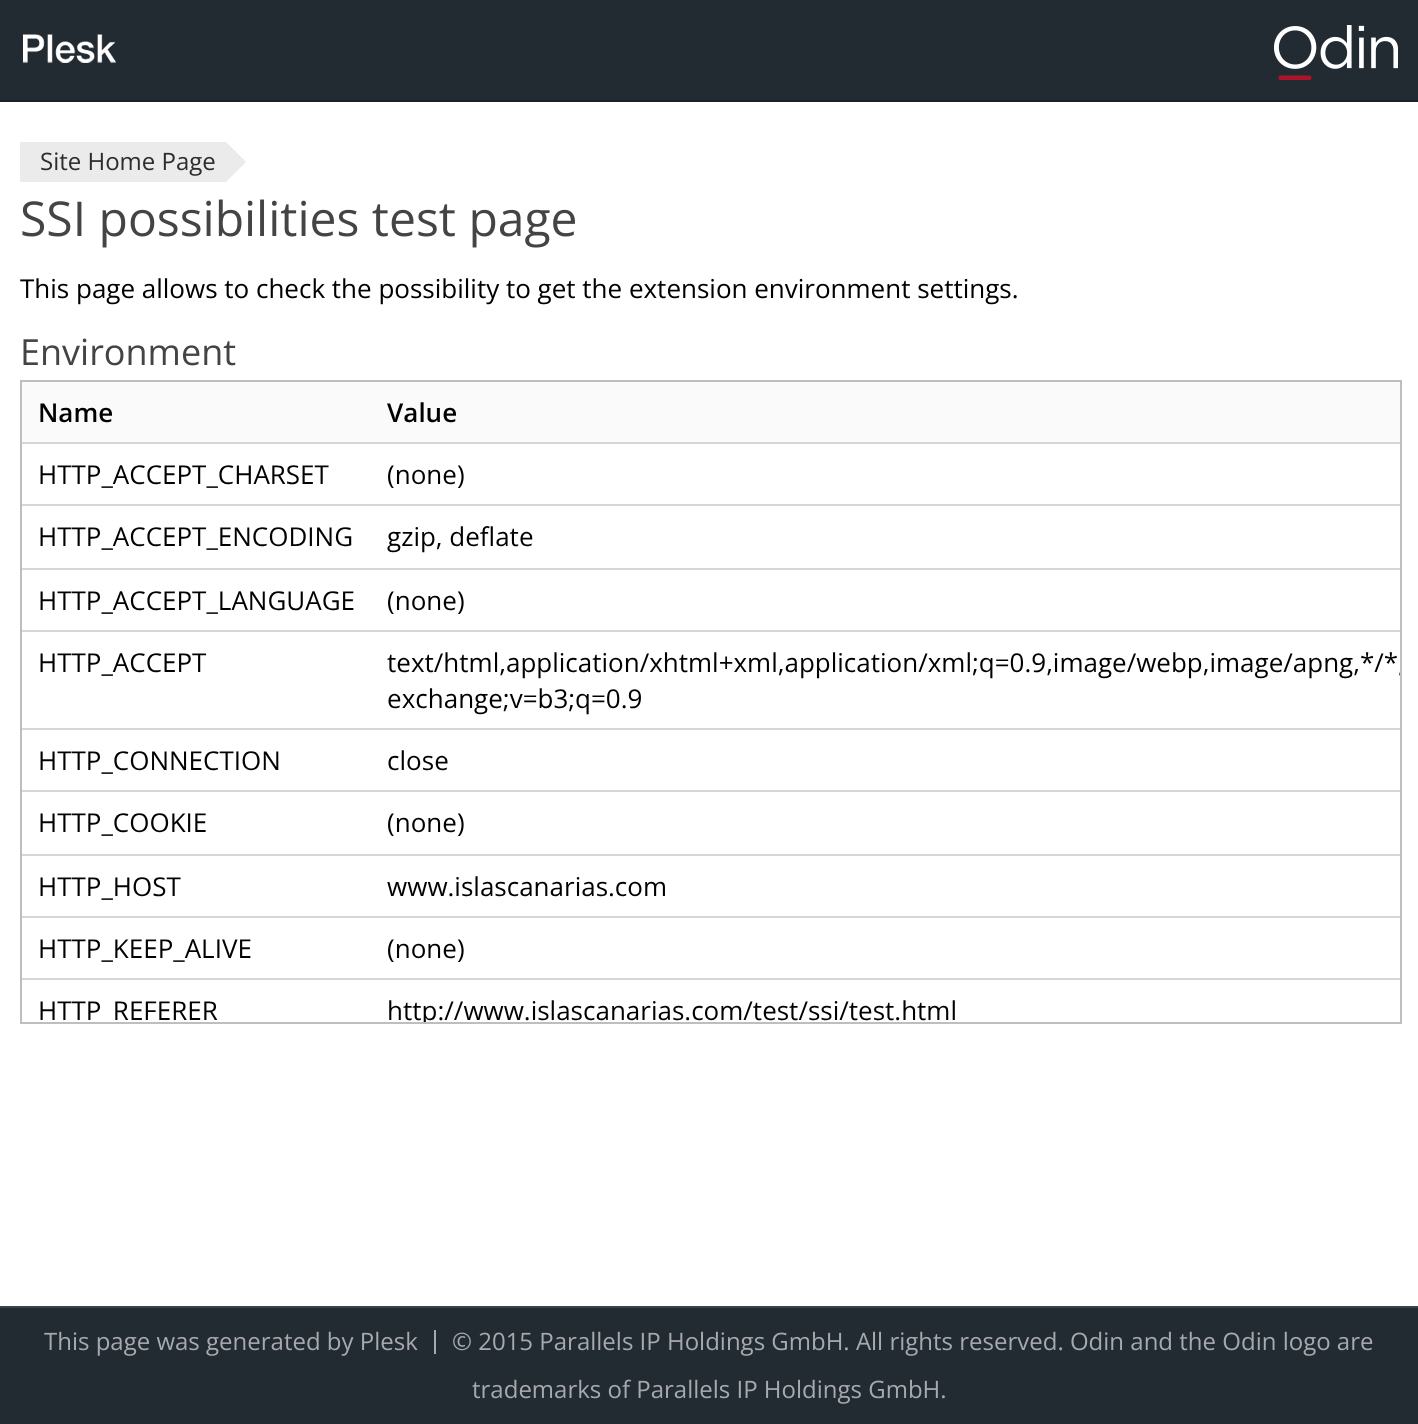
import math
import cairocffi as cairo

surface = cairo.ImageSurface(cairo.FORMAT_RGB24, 1418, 1424)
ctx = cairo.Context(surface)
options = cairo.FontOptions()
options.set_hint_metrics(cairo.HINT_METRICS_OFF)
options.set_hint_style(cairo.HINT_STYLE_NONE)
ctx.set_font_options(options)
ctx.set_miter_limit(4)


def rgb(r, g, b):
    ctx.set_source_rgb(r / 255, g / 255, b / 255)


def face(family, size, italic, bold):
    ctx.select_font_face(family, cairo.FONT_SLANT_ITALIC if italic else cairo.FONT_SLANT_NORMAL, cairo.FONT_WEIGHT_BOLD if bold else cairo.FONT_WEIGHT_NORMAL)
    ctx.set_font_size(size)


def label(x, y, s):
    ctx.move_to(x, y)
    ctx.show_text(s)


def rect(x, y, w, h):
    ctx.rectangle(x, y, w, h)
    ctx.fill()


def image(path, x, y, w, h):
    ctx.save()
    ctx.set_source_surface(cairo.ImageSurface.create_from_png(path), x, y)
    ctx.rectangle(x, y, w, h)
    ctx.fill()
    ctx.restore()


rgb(255, 255, 255)
ctx.paint()
rgb(34, 42, 50)
rect(0, 0, 1418, 100)
rgb(28, 34, 41)
rect(0, 100, 1418, 2)
image('image0.png', 23, 34, 93, 29)
image('image1.png', 1274, 25, 124, 55)
rgb(235, 235, 235)
rect(20, 142, 206, 40)
face('Open Sans', 24, 0, 0)
rgb(44, 44, 44)
label(40, 170, 'Site Home Page')
rgb(235, 235, 235)
ctx.new_path()
ctx.move_to(226, 182)
ctx.line_to(226, 142)
ctx.line_to(246, 162)
ctx.close_path()
ctx.fill()
face('Open Sans', 48, 0, 0)
rgb(68, 68, 68)
label(20, 236, 'SSI possibilities test page')
face('Open Sans', 26, 0, 0)
rgb(0, 0, 0)
label(20, 298, 'This page allows to check the possibility to get the extension environment settings.')
face('Open Sans', 36, 0, 0)
rgb(68, 68, 68)
label(20, 365, 'Environment')
ctx.rectangle(21, 381, 1380, 642)
rgb(190, 190, 190)
ctx.stroke()
image('image2.png', 22, 382, 1378, 640)
rgb(34, 42, 50)
rect(0, 1308, 1418, 116)
rgb(56, 68, 79)
rect(0, 1306, 1418, 2)
face('Open Sans', 24, 0, 0)
rgb(167, 170, 173)
label(44, 1350, 'This page was generated by Plesk')
rect(434, 1330, 2, 24)
label(452, 1350, '© 2015 Parallels IP Holdings GmbH. All rights reserved. Odin and the Odin logo are')
label(472, 1398, 'trademarks of Parallels IP Holdings GmbH.')
surface.write_to_png('render.png')
